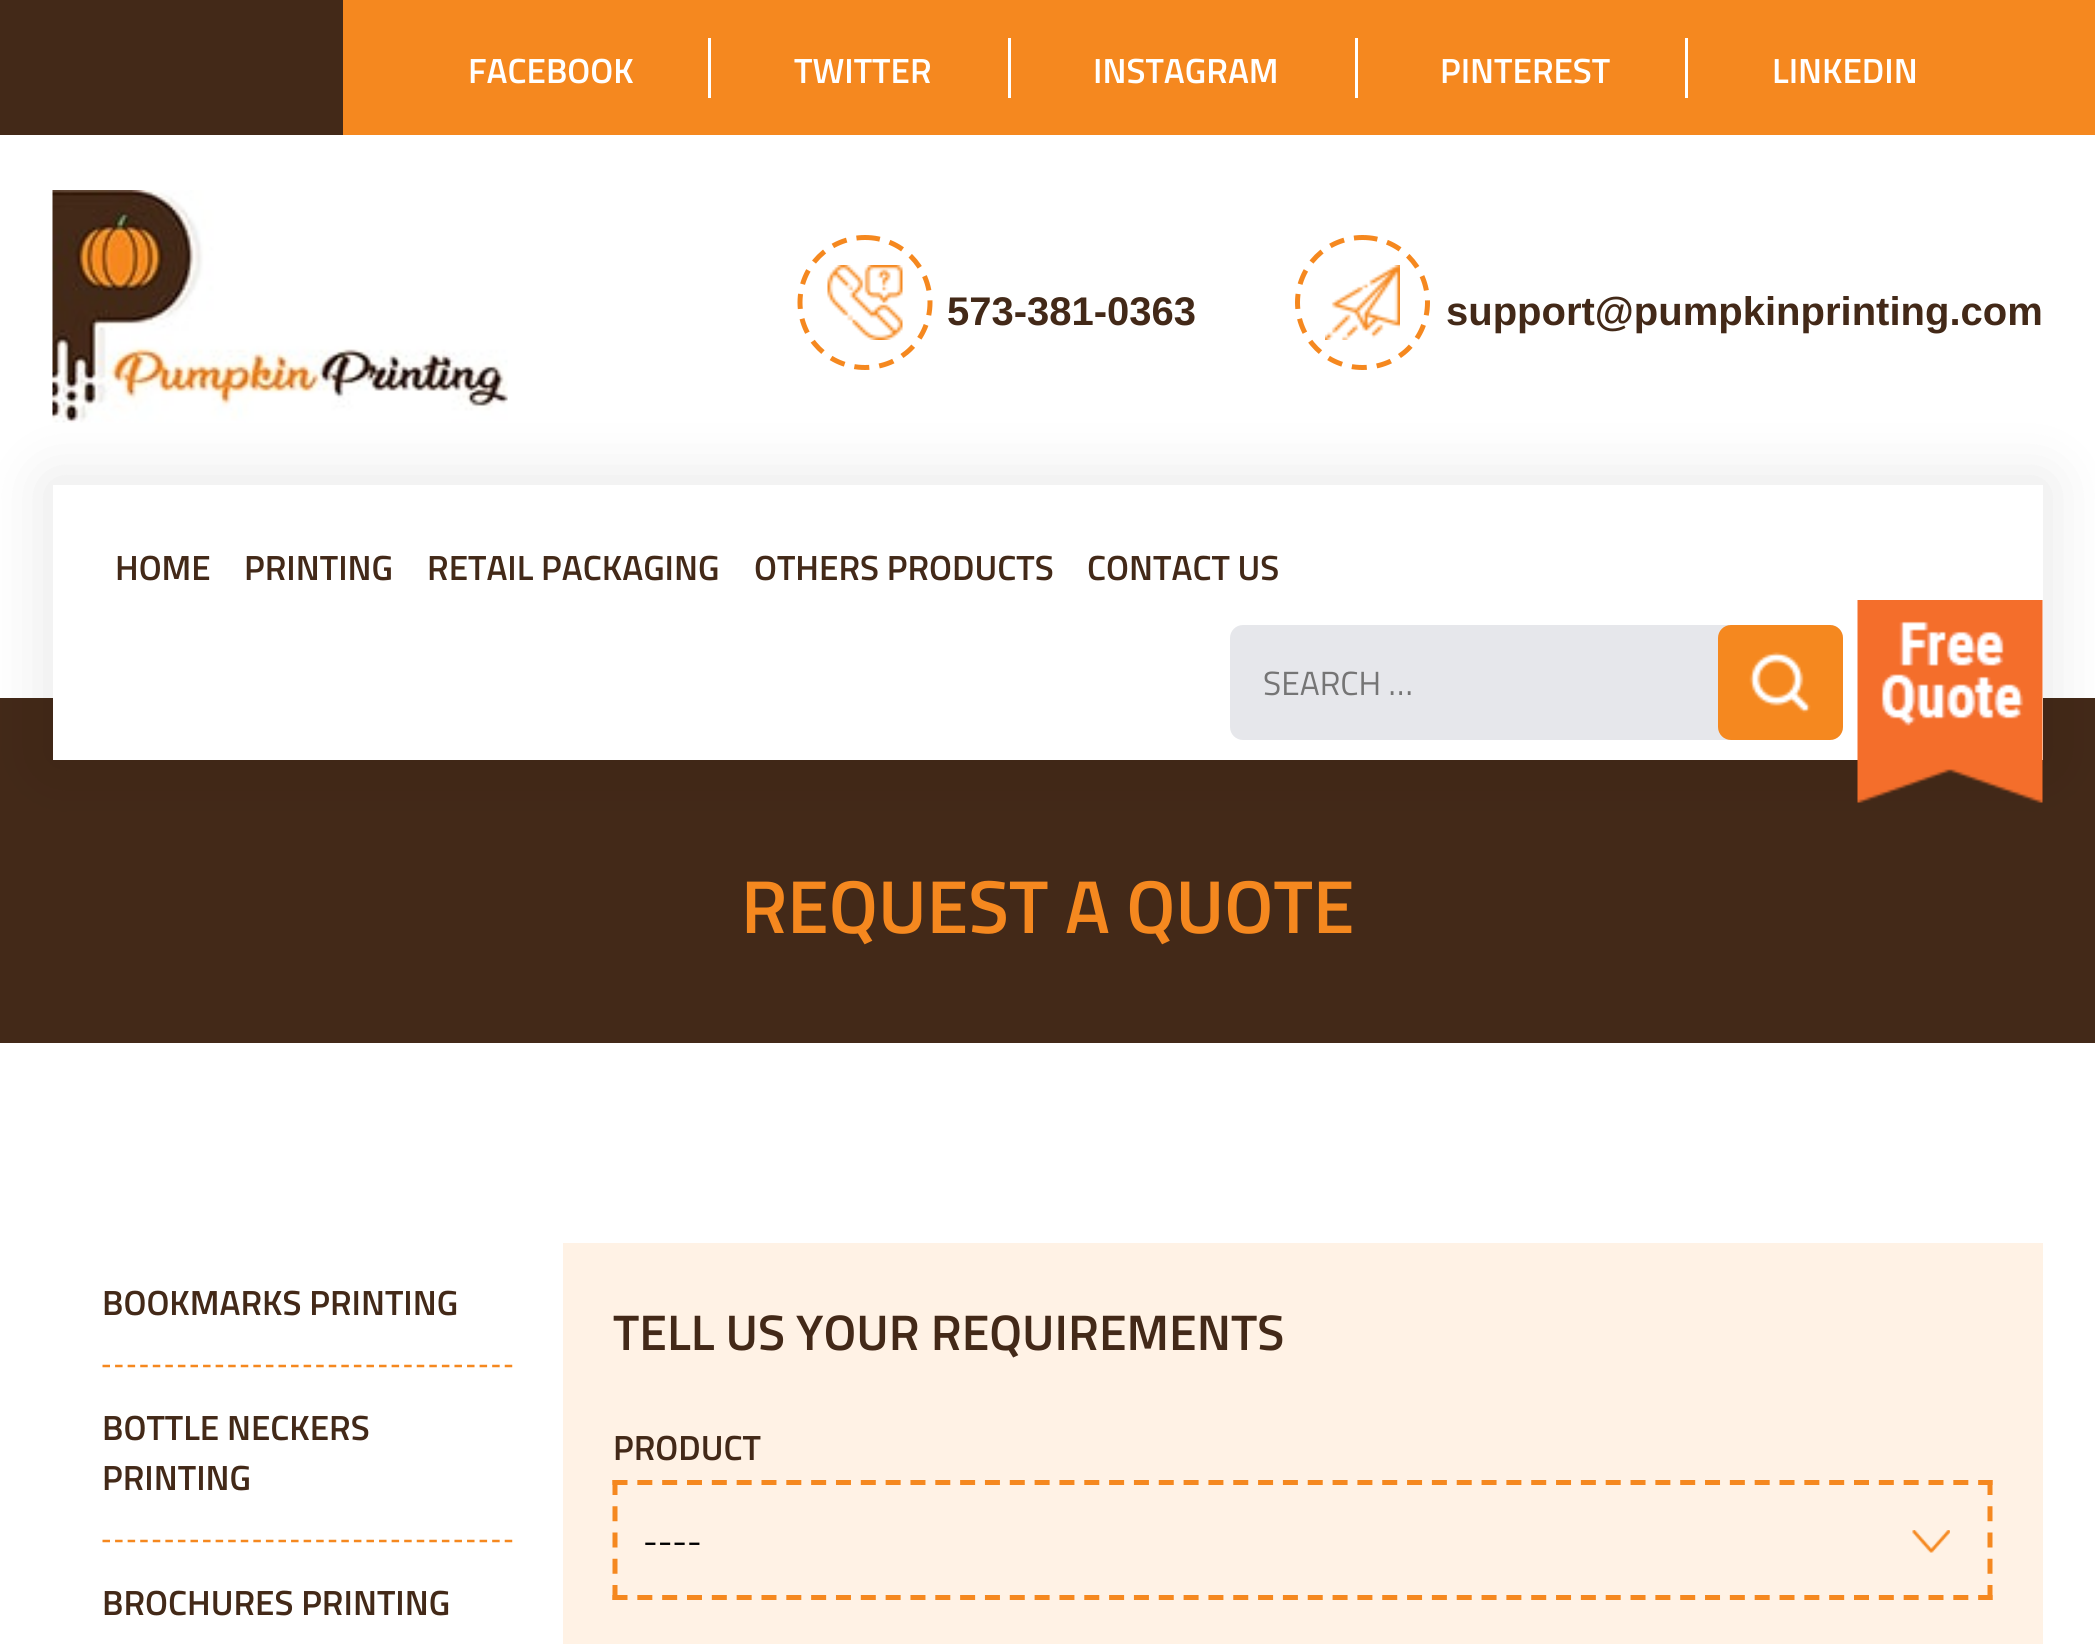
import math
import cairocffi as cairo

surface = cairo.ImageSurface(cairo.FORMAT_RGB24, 2095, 1644)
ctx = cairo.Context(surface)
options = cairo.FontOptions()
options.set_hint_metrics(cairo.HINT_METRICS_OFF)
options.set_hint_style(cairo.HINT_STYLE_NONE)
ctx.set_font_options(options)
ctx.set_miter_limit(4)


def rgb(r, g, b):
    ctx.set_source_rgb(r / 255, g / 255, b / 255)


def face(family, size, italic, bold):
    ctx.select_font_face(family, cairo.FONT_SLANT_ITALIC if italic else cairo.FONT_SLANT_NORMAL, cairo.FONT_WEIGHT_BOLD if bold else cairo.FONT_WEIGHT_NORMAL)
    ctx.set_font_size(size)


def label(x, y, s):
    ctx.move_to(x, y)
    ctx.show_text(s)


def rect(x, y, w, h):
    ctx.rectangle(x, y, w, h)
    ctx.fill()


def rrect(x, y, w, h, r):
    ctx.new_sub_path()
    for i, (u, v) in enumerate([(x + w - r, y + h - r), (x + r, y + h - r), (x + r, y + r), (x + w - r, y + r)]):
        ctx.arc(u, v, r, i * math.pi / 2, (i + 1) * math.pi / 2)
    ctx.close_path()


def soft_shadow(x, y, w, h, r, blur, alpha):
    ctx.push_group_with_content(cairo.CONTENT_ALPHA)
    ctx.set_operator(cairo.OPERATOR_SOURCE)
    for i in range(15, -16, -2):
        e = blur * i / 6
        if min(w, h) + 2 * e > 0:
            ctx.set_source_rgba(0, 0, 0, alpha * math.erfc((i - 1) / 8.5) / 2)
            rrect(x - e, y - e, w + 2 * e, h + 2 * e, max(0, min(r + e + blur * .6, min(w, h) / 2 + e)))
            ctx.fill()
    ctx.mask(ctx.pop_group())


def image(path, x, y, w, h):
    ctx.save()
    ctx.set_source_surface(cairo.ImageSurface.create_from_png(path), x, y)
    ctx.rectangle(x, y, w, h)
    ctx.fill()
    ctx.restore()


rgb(255, 255, 255)
ctx.paint()
rgb(67, 41, 24)
rect(0, 0, 343, 135)
rgb(245, 136, 31)
rect(343, 0, 1752, 135)
rgb(255, 255, 255)
rect(708, 38, 3, 60)
face('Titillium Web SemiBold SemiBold', 35, 0, 0)
label(468, 83, 'FACEBOOK')
rect(1008, 38, 3, 60)
label(794, 83, 'TWITTER')
rect(1355, 38, 3, 60)
label(1093, 83, 'INSTAGRAM')
rect(1685, 38, 3, 60)
label(1440, 83, 'PINTEREST')
label(1772, 83, 'LINKEDIN')
image('image0.png', 52, 190, 456, 233)
ctx.new_path()
ctx.move_to(865, 237.5)
ctx.curve_to(901, 237.5, 930, 266.5, 930, 302.5)
ctx.curve_to(930, 338.5, 901, 367.5, 865, 367.5)
ctx.curve_to(829, 367.5, 800, 338.5, 800, 302.5)
ctx.curve_to(800, 266.5, 829, 237.5, 865, 237.5)
ctx.close_path()
rgb(245, 136, 31)
ctx.set_line_width(5)
ctx.set_dash([15, 10])
ctx.stroke()
image('image1.png', 827, 265, 76, 75)
face('Liberation Sans', 40, 0, 1)
rgb(67, 41, 24)
label(947, 325, '573-381-0363')
ctx.new_path()
ctx.move_to(1362.5, 237.5)
ctx.curve_to(1398.5, 237.5, 1427.5, 266.5, 1427.5, 302.5)
ctx.curve_to(1427.5, 338.5, 1398.5, 367.5, 1362.5, 367.5)
ctx.curve_to(1326.5, 367.5, 1297.5, 338.5, 1297.5, 302.5)
ctx.curve_to(1297.5, 266.5, 1326.5, 237.5, 1362.5, 237.5)
ctx.close_path()
rgb(245, 136, 31)
ctx.stroke()
image('image2.png', 1325, 265, 75, 75)
rgb(67, 41, 24)
label(1446, 325, 'support@pumpkinprinting.com')
rect(0, 698, 2095, 345)
rgb(0, 0, 0)
soft_shadow(48, 480, 2000, 285, 0, 31, 0.1)
rgb(255, 255, 255)
rect(53, 485, 1990, 275)
face('Titillium Web SemiBold SemiBold', 35, 0, 0)
rgb(67, 41, 24)
label(115, 580, 'HOME')
label(244, 580, 'PRINTING')
label(427, 580, 'RETAIL PACKAGING')
label(754, 580, 'OTHERS PRODUCTS')
label(1087, 580, 'CONTACT US')
rgb(230, 231, 235)
rrect(1230, 625, 613, 115, 13)
ctx.fill()
face('Titillium Web', 33.5, 0, 0)
rgb(117, 117, 117)
label(1263, 695, 'SEARCH …')
rgb(245, 136, 31)
rrect(1718, 625, 125, 115, 13)
ctx.fill()
image('image3.png', 1749, 652, 62, 61)
image('image4.png', 1857, 600, 186, 203)
face('Titillium Web SemiBold SemiBold', 75, 0, 0)
label(741, 933, 'REQUEST A QUOTE')
ctx.new_path()
ctx.move_to(102.5, 1366)
ctx.line_to(512.5, 1366)
ctx.set_line_width(2.5)
ctx.set_dash([7.5, 5.07])
ctx.stroke()
face('Titillium Web SemiBold SemiBold', 35, 0, 0)
rgb(67, 41, 24)
label(102, 1315, 'BOOKMARKS PRINTING')
ctx.new_path()
ctx.move_to(102.5, 1541)
ctx.line_to(512.5, 1541)
rgb(245, 136, 31)
ctx.stroke()
rgb(67, 41, 24)
label(102, 1440, 'BOTTLE NECKERS')
label(102, 1490, 'PRINTING')
label(102, 1615, 'BROCHURES PRINTING')
rgb(255, 242, 229)
rect(563, 1243, 1480, 401)
face('Titillium Web SemiBold SemiBold', 50, 0, 0)
rgb(67, 41, 24)
label(613, 1350, 'TELL US YOUR REQUIREMENTS')
face('Titillium Web SemiBold SemiBold', 35, 0, 0)
label(613, 1460, 'PRODUCT')
image('image5.png', 1912, 1530, 38, 23)
ctx.new_path()
ctx.move_to(612.5, 1482.5)
ctx.line_to(1992.5, 1482.5)
rgb(245, 136, 31)
ctx.set_line_width(5)
ctx.set_dash([15, 9.83])
ctx.stroke()
ctx.new_path()
ctx.move_to(1990, 1480)
ctx.line_to(1990, 1600)
ctx.set_dash([15, 11.25])
ctx.stroke()
ctx.new_path()
ctx.move_to(612.5, 1597.5)
ctx.line_to(1992.5, 1597.5)
ctx.set_dash([15, 9.83])
ctx.stroke()
ctx.new_path()
ctx.move_to(615, 1480)
ctx.line_to(615, 1600)
ctx.set_dash([15, 11.25])
ctx.stroke()
face('Titillium Web', 33.5, 0, 0)
rgb(0, 0, 0)
label(643, 1553, '----')
surface.write_to_png('render.png')
